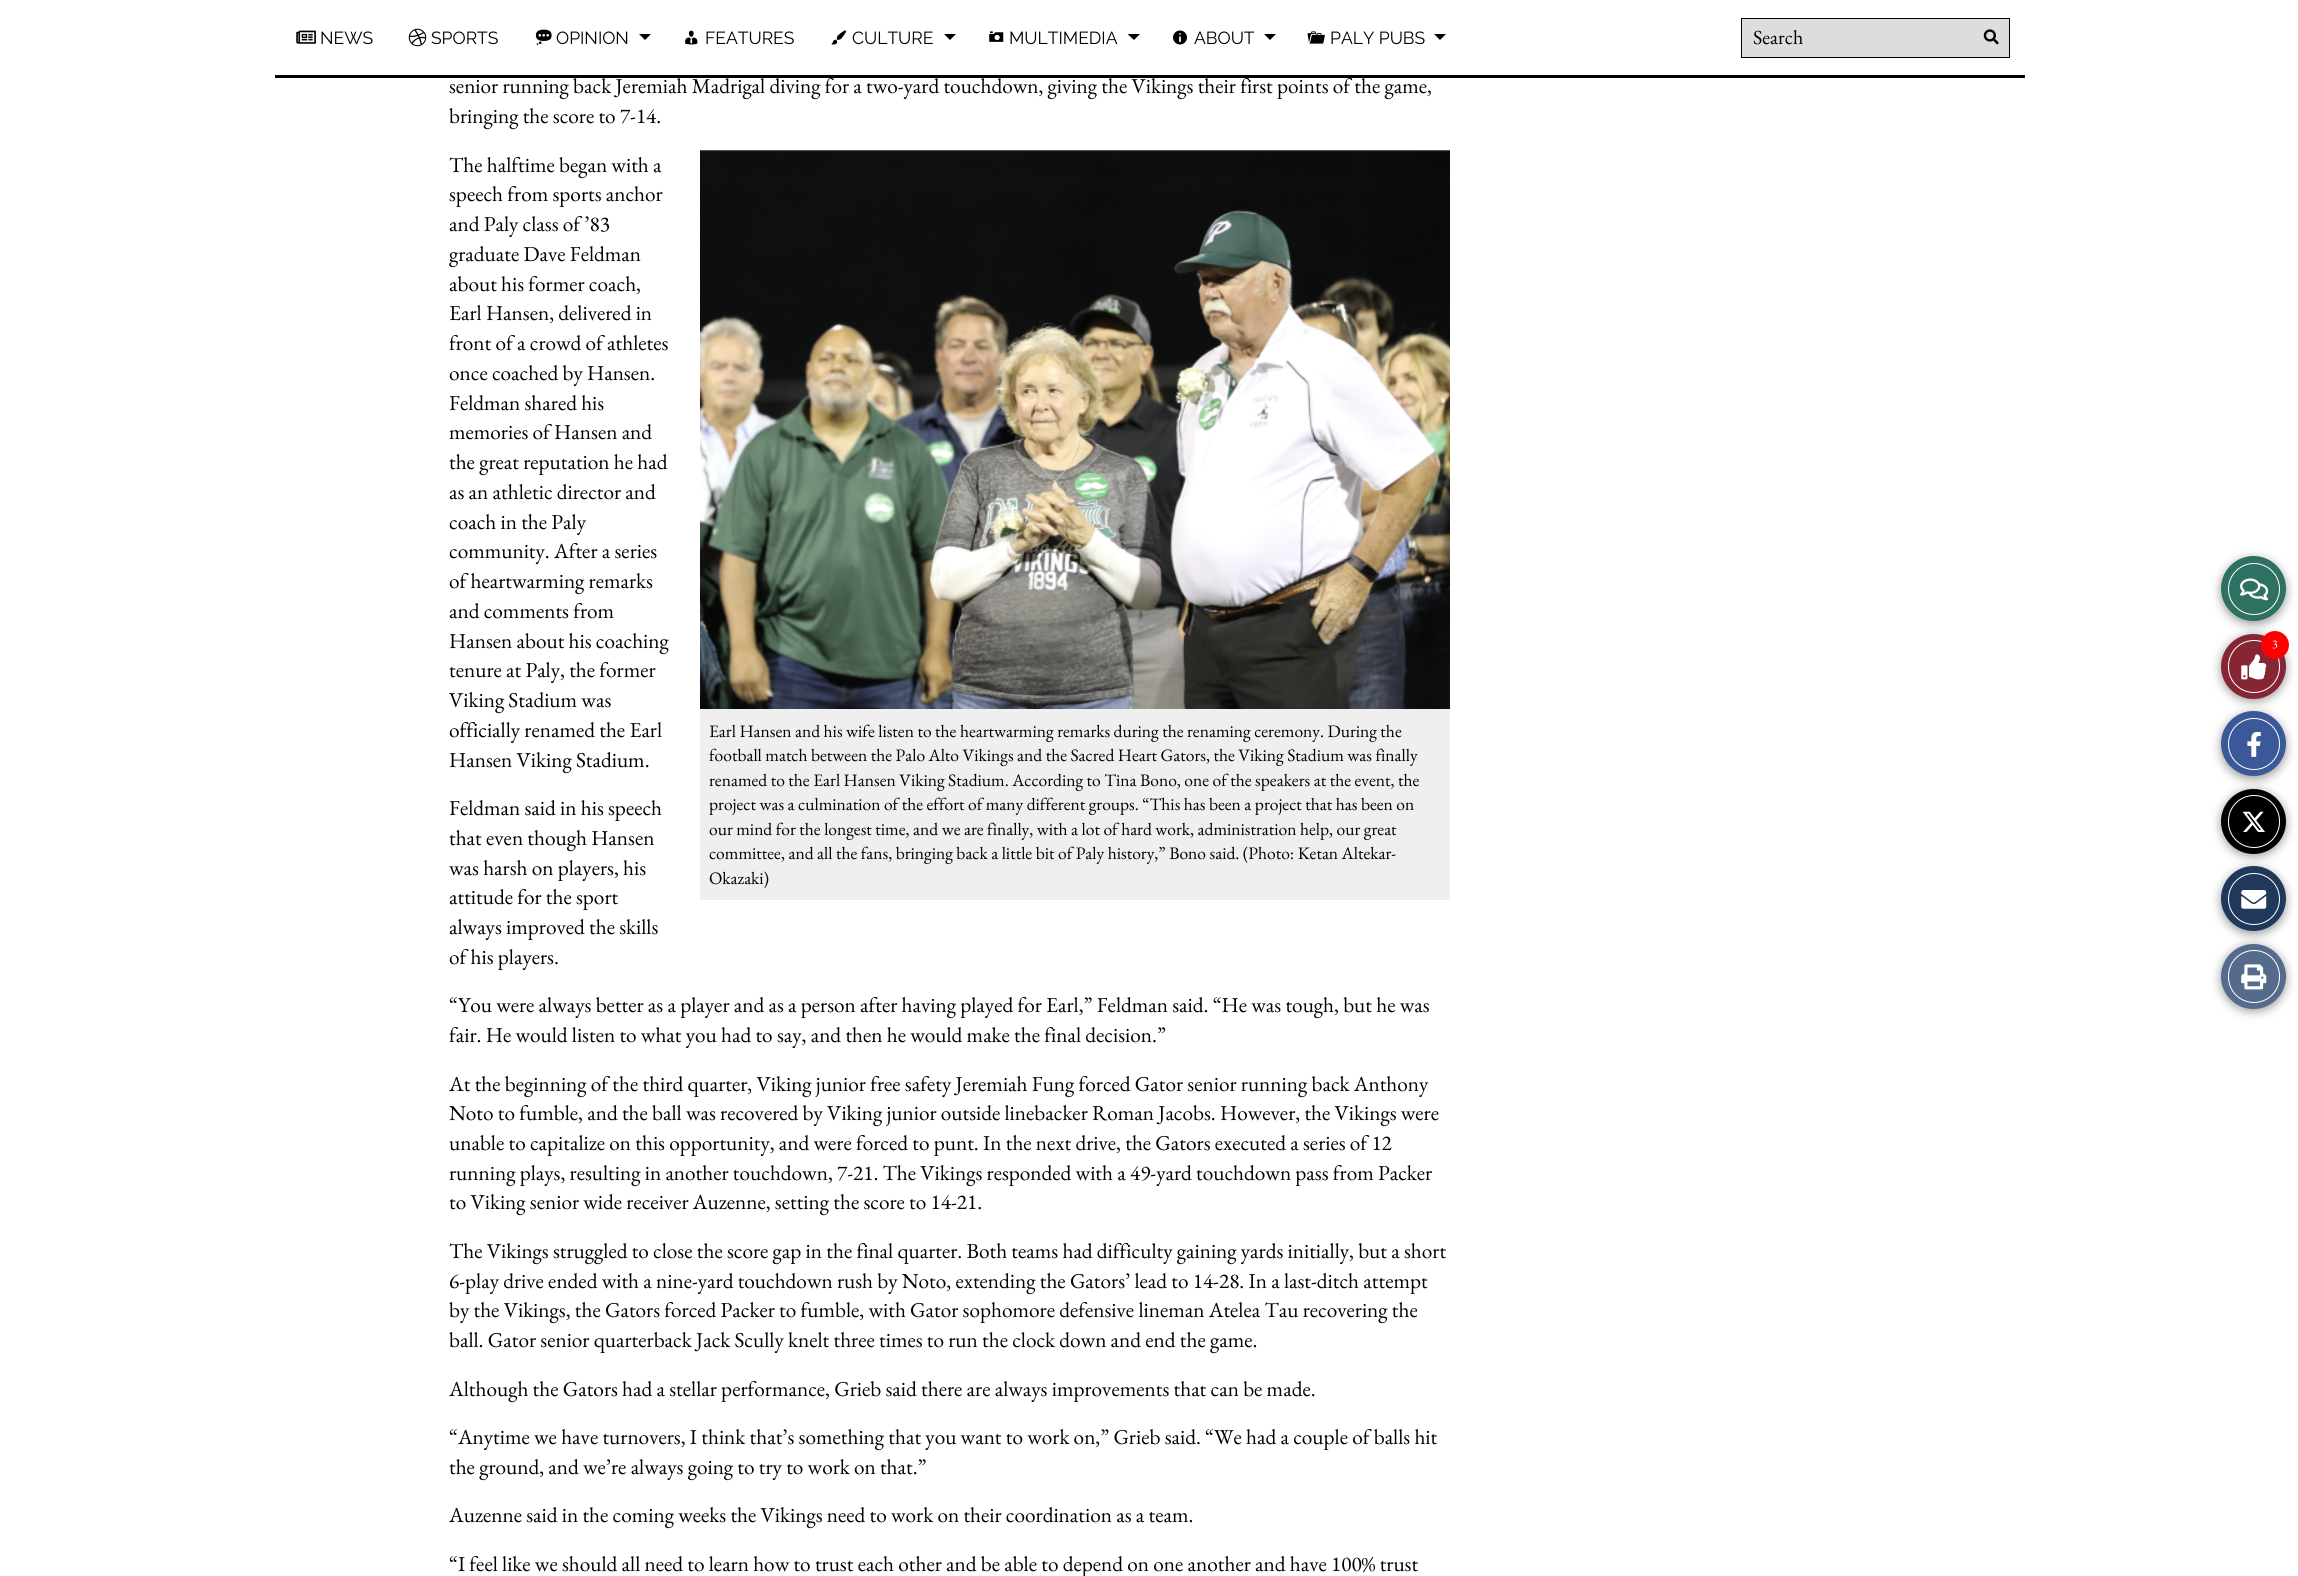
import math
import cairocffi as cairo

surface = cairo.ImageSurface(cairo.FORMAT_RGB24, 2298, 1576)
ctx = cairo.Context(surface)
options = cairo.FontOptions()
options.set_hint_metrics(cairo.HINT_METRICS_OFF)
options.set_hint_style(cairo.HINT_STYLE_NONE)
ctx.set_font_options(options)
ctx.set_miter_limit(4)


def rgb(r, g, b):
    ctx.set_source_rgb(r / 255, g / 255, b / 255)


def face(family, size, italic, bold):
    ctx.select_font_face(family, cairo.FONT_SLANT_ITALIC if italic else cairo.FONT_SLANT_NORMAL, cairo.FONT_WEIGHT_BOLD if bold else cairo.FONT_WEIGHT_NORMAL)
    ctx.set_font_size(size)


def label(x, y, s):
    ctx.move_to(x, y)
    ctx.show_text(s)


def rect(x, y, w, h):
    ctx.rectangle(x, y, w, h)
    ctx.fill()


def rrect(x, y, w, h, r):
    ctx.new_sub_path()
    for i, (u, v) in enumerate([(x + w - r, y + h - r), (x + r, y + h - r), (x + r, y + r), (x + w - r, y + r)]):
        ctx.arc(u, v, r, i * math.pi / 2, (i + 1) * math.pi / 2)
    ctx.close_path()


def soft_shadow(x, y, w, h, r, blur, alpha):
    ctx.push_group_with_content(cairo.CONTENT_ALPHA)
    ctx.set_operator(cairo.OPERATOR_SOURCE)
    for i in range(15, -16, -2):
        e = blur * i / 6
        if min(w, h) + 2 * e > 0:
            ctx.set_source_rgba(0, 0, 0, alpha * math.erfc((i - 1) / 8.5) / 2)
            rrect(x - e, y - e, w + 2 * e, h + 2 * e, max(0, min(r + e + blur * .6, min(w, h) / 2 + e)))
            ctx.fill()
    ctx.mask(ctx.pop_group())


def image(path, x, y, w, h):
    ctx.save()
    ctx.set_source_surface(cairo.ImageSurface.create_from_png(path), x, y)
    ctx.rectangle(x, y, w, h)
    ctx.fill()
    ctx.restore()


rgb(255, 255, 255)
ctx.paint()
rgb(0, 0, 0)
rect(275, 75, 1750, 3)
image('image0.png', 296, 30, 20, 14)
face('Raleway', 17.5, 0, 0)
label(320, 44, 'NEWS')
image('image1.png', 408, 28, 19, 19)
label(431, 44, 'SPORTS')
image('image2.png', 535, 29, 17, 16)
label(556, 44, 'OPINION')
ctx.new_path()
ctx.move_to(639, 34)
ctx.line_to(651, 34)
ctx.line_to(645, 40)
ctx.close_path()
ctx.fill()
image('image3.png', 685, 30, 13, 15)
label(705, 44, 'FEATURES')
image('image4.png', 831, 30, 16, 15)
label(852, 44, 'CULTURE')
ctx.new_path()
ctx.move_to(944, 34)
ctx.line_to(956, 34)
ctx.line_to(950, 40)
ctx.close_path()
ctx.fill()
image('image5.png', 989, 31, 15, 11)
label(1009, 44, 'MULTIMEDIA')
ctx.new_path()
ctx.move_to(1127.5, 34)
ctx.line_to(1140, 34)
ctx.line_to(1134, 40)
ctx.close_path()
ctx.fill()
image('image6.png', 1173, 30, 14, 15)
label(1194, 44, 'ABOUT')
ctx.new_path()
ctx.move_to(1264, 34)
ctx.line_to(1276, 34)
ctx.line_to(1270, 40)
ctx.close_path()
ctx.fill()
image('image7.png', 1307, 31, 18, 13)
label(1330, 44, 'PALY PUBS')
ctx.new_path()
ctx.move_to(1434, 34)
ctx.line_to(1446, 34)
ctx.line_to(1440, 40)
ctx.close_path()
ctx.fill()
rgb(221, 221, 221)
ctx.rectangle(1741.5, 18.5, 268, 39)
ctx.fill_preserve()
rgb(0, 0, 0)
ctx.set_line_width(1)
ctx.stroke()
face('EB Garamond', 20, 0, 0)
label(1753, 44, 'Search')
image('image8.png', 1983, 29, 16, 16)
face('EB Garamond', 21.25, 0, 0)
label(449, 93, 'senior running back Jeremiah Madrigal diving for a two-yard touchdown, giving the Vikings their first points of the game,')
label(449, 123, 'bringing the score to 7-14.')
label(449, 172, 'The halftime began with a')
label(449, 201, 'speech from sports anchor')
label(449, 231, 'and Paly class of ’83')
label(449, 261, 'graduate Dave Feldman')
label(449, 291, 'about his former coach,')
label(449, 320, 'Earl Hansen, delivered in')
label(449, 350, 'front of a crowd of athletes')
label(449, 380, 'once coached by Hansen.')
label(449, 410, 'Feldman shared his')
label(449, 439, 'memories of Hansen and')
label(449, 469, 'the great reputation he had')
label(449, 499, 'as an athletic director and')
label(449, 529, 'coach in the Paly')
label(449, 558, 'community. After a series')
label(449, 588, 'of heartwarming remarks')
label(449, 618, 'and comments from')
label(449, 648, 'Hansen about his coaching')
label(449, 677, 'tenure at Paly, the former')
label(449, 707, 'Viking Stadium was')
label(449, 737, 'officially renamed the Earl')
label(449, 767, 'Hansen Viking Stadium.')
label(449, 815, 'Feldman said in his speech')
label(449, 845, 'that even though Hansen')
label(449, 875, 'was harsh on players, his')
label(449, 904, 'attitude for the sport')
label(449, 934, 'always improved the skills')
label(449, 964, 'of his players.')
image('image9.png', 700, 150, 750, 559)
rgb(239, 239, 239)
rect(700, 709, 750, 191)
face('EB Garamond', 17.5, 0, 0)
rgb(0, 0, 0)
label(709, 737, 'Earl Hansen and his wife listen to the heartwarming remarks during the renaming ceremony. During the')
label(709, 761, 'football match between the Palo Alto Vikings and the Sacred Heart Gators, the Viking Stadium was finally')
label(709, 786, 'renamed to the Earl Hansen Viking Stadium. According to Tina Bono, one of the speakers at the event, the')
label(709, 810, 'project was a culmination of the effort of many different groups. “This has been a project that has been on')
label(709, 835, 'our mind for the longest time, and we are finally, with a lot of hard work, administration help, our great')
label(709, 859, 'committee, and all the fans, bringing back a little bit of Paly history,” Bono said. (Photo: Ketan Altekar-')
label(709, 884, 'Okazaki)')
face('EB Garamond', 21.25, 0, 0)
label(449, 1012, '“You were always better as a player and as a person after having played for Earl,” Feldman said. “He was tough, but he was')
label(449, 1042, 'fair. He would listen to what you had to say, and then he would make the final decision.”')
label(449, 1091, 'At the beginning of the third quarter, Viking junior free safety Jeremiah Fung forced Gator senior running back Anthony')
label(449, 1120, 'Noto to fumble, and the ball was recovered by Viking junior outside linebacker Roman Jacobs. However, the Vikings were')
label(449, 1150, 'unable to capitalize on this opportunity, and were forced to punt. In the next drive, the Gators executed a series of 12')
label(449, 1180, 'running plays, resulting in another touchdown, 7-21. The Vikings responded with a 49-yard touchdown pass from Packer')
label(449, 1209, 'to Viking senior wide receiver Auzenne, setting the score to 14-21.')
label(449, 1258, 'The Vikings struggled to close the score gap in the final quarter. Both teams had difficulty gaining yards initially, but a short')
label(449, 1288, '6-play drive ended with a nine-yard touchdown rush by Noto, extending the Gators’ lead to 14-28. In a last-ditch attempt')
label(449, 1317, 'by the Vikings, the Gators forced Packer to fumble, with Gator sophomore defensive lineman Atelea Tau recovering the')
label(449, 1347, 'ball. Gator senior quarterback Jack Scully knelt three times to run the clock down and end the game.')
label(449, 1396, 'Although the Gators had a stellar performance, Grieb said there are always improvements that can be made.')
label(449, 1444, '“Anytime we have turnovers, I think that’s something that you want to work on,” Grieb said. “We had a couple of balls hit')
label(449, 1474, 'the ground, and we’re always going to try to work on that.”')
label(449, 1522, 'Auzenne said in the coming weeks the Vikings need to work on their coordination as a team.')
label(449, 1571, '“I feel like we should all need to learn how to trust each other and be able to depend on one another and have 100% trust')
rgb(0, 0, 0)
soft_shadow(2221, 559, 65, 65, 32.5, 5, 0.4)
rgb(46, 112, 97)
ctx.arc(2253.5, 588.5, 32.5, 0, 2 * math.pi)
ctx.fill()
ctx.arc(2254, 589, 25.5, 0, 2 * math.pi)
rgb(255, 255, 255)
ctx.stroke()
image('image10.png', 2240, 578, 29, 23)
rgb(0, 0, 0)
soft_shadow(2221, 636, 65, 65, 32.5, 5, 0.4)
rgb(134, 38, 53)
ctx.arc(2253.5, 666.5, 32.5, 0, 2 * math.pi)
ctx.fill()
rrect(2228.5, 640.5, 51, 52, 25.5)
rgb(255, 255, 255)
ctx.stroke()
image('image11.png', 2241, 654, 26, 26)
rgb(255, 0, 0)
ctx.arc(2275, 645, 14, 0, 2 * math.pi)
ctx.fill()
face('EB Garamond', 12, 0, 0)
rgb(255, 255, 255)
label(2272, 648, '3')
rgb(0, 0, 0)
soft_shadow(2221, 714, 65, 65, 32.5, 5, 0.4)
rgb(59, 89, 152)
ctx.arc(2253.5, 743.5, 32.5, 0, 2 * math.pi)
ctx.fill()
ctx.arc(2254, 744, 25.5, 0, 2 * math.pi)
rgb(255, 255, 255)
ctx.stroke()
image('image12.png', 2247, 731, 14, 26)
rgb(0, 0, 0)
soft_shadow(2221, 791, 65, 65, 32.5, 5, 0.4)
rgb(0, 0, 0)
ctx.arc(2253.5, 821.5, 32.5, 0, 2 * math.pi)
ctx.fill()
rrect(2228.5, 795.5, 51, 52, 25.5)
rgb(255, 255, 255)
ctx.stroke()
image('image13.png', 2242, 811, 23, 21)
rgb(0, 0, 0)
soft_shadow(2221, 869, 65, 65, 32.5, 5, 0.4)
rgb(31, 56, 92)
ctx.arc(2253.5, 898.5, 32.5, 0, 2 * math.pi)
ctx.fill()
ctx.arc(2254, 899, 25.5, 0, 2 * math.pi)
rgb(255, 255, 255)
ctx.stroke()
image('image14.png', 2241, 890, 26, 19)
rgb(0, 0, 0)
soft_shadow(2221, 946, 65, 65, 32.5, 5, 0.4)
rgb(84, 107, 139)
ctx.arc(2253.5, 976.5, 32.5, 0, 2 * math.pi)
ctx.fill()
rrect(2228.5, 950.5, 51, 52, 25.5)
rgb(255, 255, 255)
ctx.stroke()
image('image15.png', 2241, 964, 26, 26)
surface.write_to_png('render.png')
